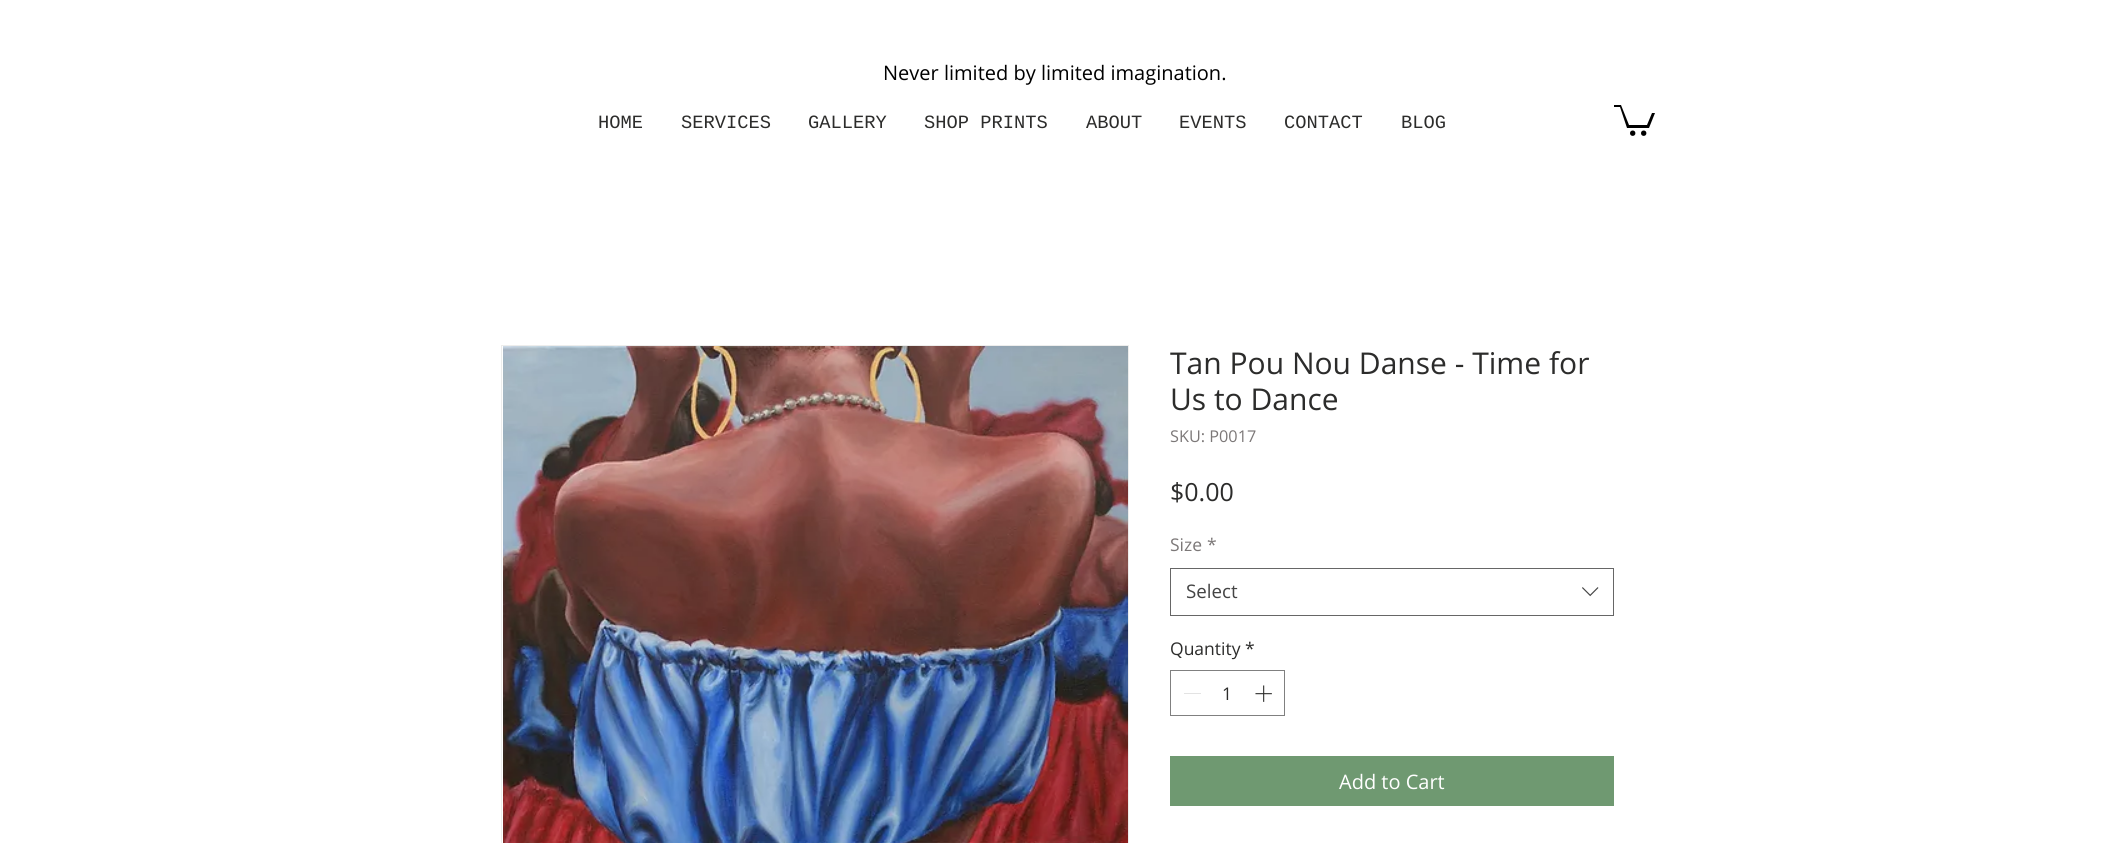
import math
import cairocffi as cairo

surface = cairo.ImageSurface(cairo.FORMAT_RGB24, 2114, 843)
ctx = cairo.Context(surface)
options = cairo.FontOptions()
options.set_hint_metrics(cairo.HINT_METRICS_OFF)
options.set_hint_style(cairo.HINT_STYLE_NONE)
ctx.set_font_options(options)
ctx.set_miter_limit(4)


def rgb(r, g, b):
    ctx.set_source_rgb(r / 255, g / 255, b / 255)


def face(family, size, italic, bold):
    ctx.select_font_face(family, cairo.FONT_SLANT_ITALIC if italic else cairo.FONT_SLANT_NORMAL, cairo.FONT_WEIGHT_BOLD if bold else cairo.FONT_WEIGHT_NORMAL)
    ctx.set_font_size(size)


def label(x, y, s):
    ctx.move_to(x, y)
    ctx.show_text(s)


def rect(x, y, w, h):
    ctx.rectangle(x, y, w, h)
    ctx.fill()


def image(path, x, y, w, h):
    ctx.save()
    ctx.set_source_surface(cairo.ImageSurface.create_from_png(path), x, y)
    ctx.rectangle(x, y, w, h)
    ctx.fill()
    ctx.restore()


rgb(255, 255, 255)
ctx.paint()
face('Open Sans', 20, 0, 0)
rgb(0, 0, 0)
label(883, 80, 'Never limited by limited imagination.')
face('Liberation Mono', 18.75, 0, 0)
rgb(44, 44, 43)
label(598, 128, 'HOME')
label(681, 128, 'SERVICES')
label(808, 128, 'GALLERY')
label(924, 128, 'SHOP PRINTS')
label(1086, 128, 'ABOUT')
label(1179, 128, 'EVENTS')
label(1284, 128, 'CONTACT')
label(1401, 128, 'BLOG')
rgb(0, 0, 0)
ctx.new_path()
ctx.move_to(1655, 113)
ctx.line_to(1649, 128)
ctx.line_to(1627, 128)
ctx.line_to(1620, 107)
ctx.line_to(1614, 107)
ctx.line_to(1614, 105)
ctx.line_to(1621, 105)
ctx.line_to(1629, 125)
ctx.line_to(1647, 125)
ctx.line_to(1652, 113)
ctx.fill()
ctx.arc(1643.7, 133.2, 2.7, 0, 2 * math.pi)
ctx.fill()
ctx.arc(1632.7, 133.2, 2.7, 0, 2 * math.pi)
ctx.fill()
ctx.rectangle(501.5, 345.5, 627, 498)
rgb(237, 237, 236)
ctx.set_line_width(1)
ctx.stroke()
image('image0.png', 503, 346, 625, 497)
face('Open Sans', 30, 0, 0)
rgb(44, 44, 43)
label(1170, 374, 'Tan Pou Nou Danse - Time for')
label(1170, 410, 'Us to Dance')
face('Open Sans', 16.25, 0, 0)
rgb(124, 120, 120)
label(1170, 442, 'SKU: P0017')
face('Open Sans', 25, 0, 0)
rgb(44, 44, 43)
label(1170, 501, '$0.00')
face('Open Sans', 17.5, 0, 0)
rgb(124, 120, 120)
label(1170, 551, 'Size')
label(1207, 551, '*')
ctx.rectangle(1170.5, 568.5, 443, 47)
rgb(102, 102, 102)
ctx.stroke()
face('Open Sans', 18.75, 0, 0)
rgb(68, 68, 68)
label(1186, 598, 'Select')
image('image1.png', 1582, 587, 17, 10)
face('Open Sans', 17.5, 0, 0)
rgb(44, 44, 43)
label(1170, 655, 'Quantity')
label(1245, 655, '*')
ctx.rectangle(1170.5, 670.5, 114, 45)
rgb(128, 128, 128)
ctx.stroke()
rgb(227, 227, 227)
rect(1184, 693, 17, 1)
rgb(44, 44, 43)
label(1222, 700, '1')
image('image2.png', 1255, 685, 17, 17)
rgb(111, 153, 113)
rect(1170, 756, 444, 50)
face('Open Sans', 20, 0, 0)
rgb(255, 255, 255)
label(1339, 789, 'Add to Cart')
surface.write_to_png('render.png')
